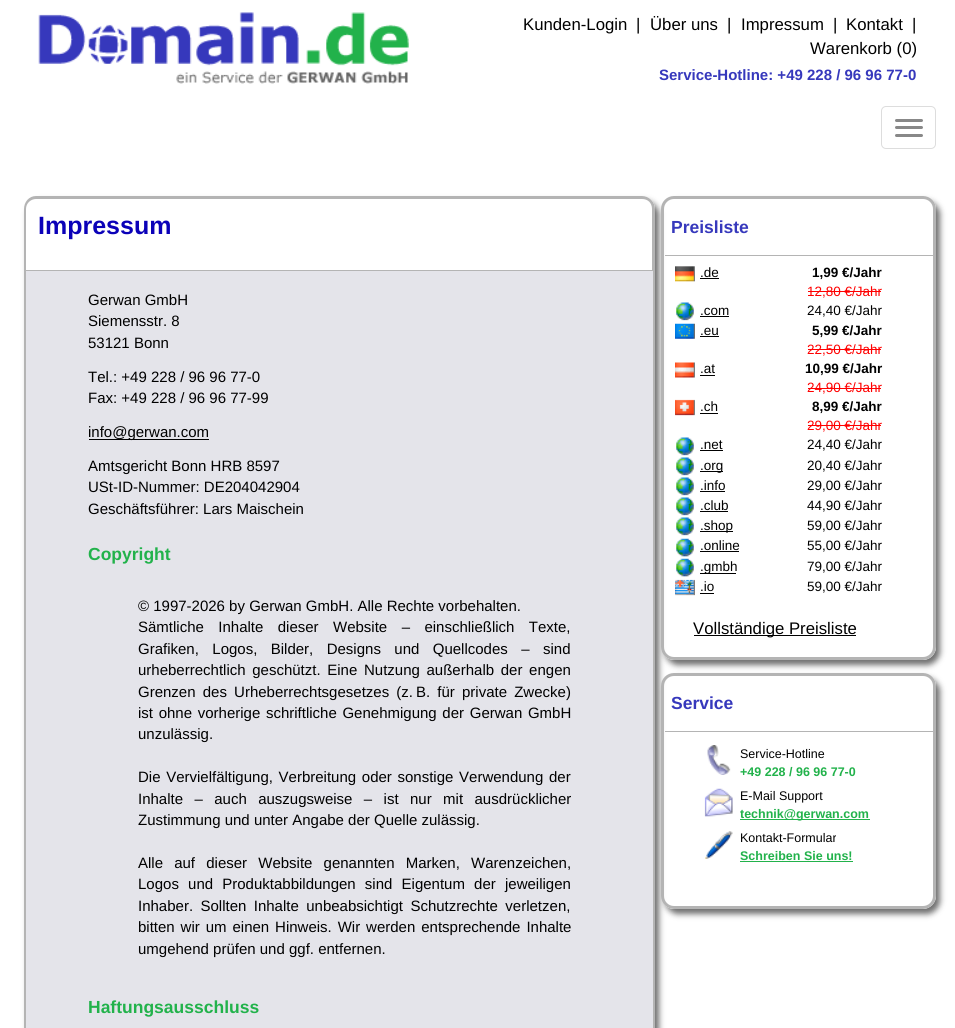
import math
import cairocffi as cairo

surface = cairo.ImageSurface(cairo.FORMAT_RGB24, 955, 1028)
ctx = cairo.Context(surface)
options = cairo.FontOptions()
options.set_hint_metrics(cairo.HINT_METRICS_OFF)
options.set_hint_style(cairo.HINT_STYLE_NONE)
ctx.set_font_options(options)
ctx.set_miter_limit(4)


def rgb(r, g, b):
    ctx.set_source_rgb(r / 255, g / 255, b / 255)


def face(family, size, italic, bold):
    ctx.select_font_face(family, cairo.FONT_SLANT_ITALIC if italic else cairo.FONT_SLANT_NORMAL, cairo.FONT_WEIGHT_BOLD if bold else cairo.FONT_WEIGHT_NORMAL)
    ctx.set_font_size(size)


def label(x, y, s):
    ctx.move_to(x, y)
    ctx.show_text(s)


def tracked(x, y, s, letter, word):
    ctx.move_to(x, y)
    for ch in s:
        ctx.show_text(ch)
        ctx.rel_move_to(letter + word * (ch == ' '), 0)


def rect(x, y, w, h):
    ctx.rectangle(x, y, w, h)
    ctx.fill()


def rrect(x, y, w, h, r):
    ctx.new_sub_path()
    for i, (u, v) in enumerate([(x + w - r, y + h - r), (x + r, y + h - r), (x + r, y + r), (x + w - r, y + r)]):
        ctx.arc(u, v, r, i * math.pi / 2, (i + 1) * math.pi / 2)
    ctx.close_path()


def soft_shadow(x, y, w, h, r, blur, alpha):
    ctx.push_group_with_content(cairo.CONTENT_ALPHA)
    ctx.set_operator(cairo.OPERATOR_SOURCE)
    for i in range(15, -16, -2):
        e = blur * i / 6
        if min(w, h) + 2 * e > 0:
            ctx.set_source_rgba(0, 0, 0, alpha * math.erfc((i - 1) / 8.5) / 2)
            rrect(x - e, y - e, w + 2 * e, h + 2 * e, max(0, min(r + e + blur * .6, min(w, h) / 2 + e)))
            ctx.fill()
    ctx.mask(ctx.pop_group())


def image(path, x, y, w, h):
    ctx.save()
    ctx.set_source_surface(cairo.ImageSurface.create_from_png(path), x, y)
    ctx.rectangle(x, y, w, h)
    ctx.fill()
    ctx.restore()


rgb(255, 255, 255)
ctx.paint()
image('image0.png', 38, 12, 371, 72)
face('Liberation Sans', 16.75, 0, 0)
rgb(0, 0, 0)
label(523, 30, 'Kunden-Login')
label(636, 30, '|')
label(650, 30, 'Über uns')
label(727, 30, '|')
label(741, 30, 'Impressum')
label(833, 30, '|')
label(846, 30, 'Kontakt')
label(912, 30, '|')
label(810, 54, 'Warenkorb (0)')
face('Liberation Sans', 15, 0, 1)
rgb(54, 56, 188)
label(659, 80, 'Service-Hotline: +49 228 / 96 96 77-0')
rrect(881.5, 106.5, 54, 42, 4.5)
rgb(221, 221, 221)
ctx.set_line_width(1)
ctx.stroke()
rgb(136, 136, 136)
rrect(895, 119, 28, 3, 1.5)
ctx.fill()
rrect(895, 126, 28, 3, 1.5)
ctx.fill()
rrect(895, 134, 28, 3, 1.5)
ctx.fill()
ctx.save()
ctx.set_fill_rule(cairo.FILL_RULE_EVEN_ODD)
ctx.new_path()
ctx.move_to(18, 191)
ctx.line_to(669, 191)
ctx.line_to(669, 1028)
ctx.line_to(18, 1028)
ctx.close_path()
ctx.move_to(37, 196)
ctx.line_to(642, 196)
ctx.curve_to(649, 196, 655, 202, 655, 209)
ctx.line_to(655, 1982)
ctx.curve_to(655, 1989, 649, 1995, 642, 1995)
ctx.line_to(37, 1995)
ctx.curve_to(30, 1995, 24, 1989, 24, 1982)
ctx.line_to(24, 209)
ctx.curve_to(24, 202, 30, 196, 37, 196)
ctx.close_path()
ctx.clip()
rgb(111, 111, 111)
soft_shadow(28, 201, 631, 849, 13, 3, 1)
ctx.restore()
rgb(180, 180, 180)
ctx.set_fill_rule(cairo.FILL_RULE_EVEN_ODD)
ctx.new_path()
ctx.move_to(36, 196)
ctx.line_to(642, 196)
ctx.curve_to(649, 196, 655, 202, 655, 209)
ctx.line_to(655, 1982)
ctx.curve_to(655, 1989, 649, 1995, 642, 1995)
ctx.line_to(36, 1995)
ctx.curve_to(29, 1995, 24, 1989, 24, 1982)
ctx.line_to(24, 209)
ctx.curve_to(24, 202, 29, 196, 36, 196)
ctx.close_path()
ctx.move_to(36, 199)
ctx.line_to(642, 199)
ctx.curve_to(648, 199, 652, 203, 652, 209)
ctx.line_to(652, 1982)
ctx.curve_to(652, 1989, 648, 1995, 642, 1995)
ctx.line_to(36, 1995)
ctx.curve_to(31, 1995, 26, 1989, 26, 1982)
ctx.line_to(26, 209)
ctx.curve_to(26, 203, 31, 199, 36, 199)
ctx.close_path()
ctx.fill()
face('Liberation Sans', 25, 0, 1)
rgb(11, 1, 184)
label(38, 234, 'Impressum')
rgb(228, 228, 234)
rect(26, 271, 627, 757)
rgb(180, 180, 180)
rect(26, 270, 627, 1)
face('Liberation Sans', 15, 0, 0)
rgb(0, 0, 0)
label(88, 305, 'Gerwan GmbH')
label(88, 326, 'Siemensstr. 8')
label(88, 348, '53121 Bonn')
label(88, 382, 'Tel.: +49 228 / 96 96 77-0')
label(88, 403, 'Fax: +49 228 / 96 96 77-99')
rect(89, 439, 120, 1)
label(88, 437, 'info@gerwan.com')
label(88, 471, 'Amtsgericht Bonn HRB 8597')
label(88, 492, 'USt-ID-Nummer: DE204042904')
label(88, 514, 'Geschäftsführer: Lars Maischein')
face('Liberation Sans', 17.5, 0, 1)
rgb(34, 178, 75)
label(88, 560, 'Copyright')
face('Liberation Sans', 15, 0, 0)
rgb(0, 0, 0)
label(138, 611, '© 1997-2026 by Gerwan GmbH. Alle Rechte vorbehalten.')
tracked(138, 632, 'Sämtliche Inhalte dieser Website – einschließlich Texte,', 0, 10.25)
tracked(138, 654, 'Grafiken, Logos, Bilder, Designs und Quellcodes – sind', 0, 9.25)
tracked(138, 675, 'urheberrechtlich geschützt. Eine Nutzung außerhalb der engen', 0, 2.5)
tracked(138, 697, 'Grenzen des Urheberrechtsgesetzes (z. B. für private Zwecke)', 0, 3)
tracked(138, 718, 'ist ohne vorherige schriftliche Genehmigung der Gerwan GmbH', 0, 1.5)
label(138, 739, 'unzulässig.')
tracked(138, 782, 'Die Vervielfältigung, Verbreitung oder sonstige Verwendung der', 0, 1.5)
tracked(138, 804, 'Inhalte – auch auszugsweise – ist nur mit ausdrücklicher', 0, 7.25)
label(138, 825, 'Zustimmung und unter Angabe der Quelle zulässig.')
tracked(138, 868, 'Alle auf dieser Website genannten Marken, Warenzeichen,', 0, 7)
tracked(138, 889, 'Logos und Produktabbildungen sind Eigentum der jeweiligen', 0, 5)
tracked(138, 911, 'Inhaber. Sollten Inhalte unbeabsichtigt Schutzrechte verletzen,', 0, 3.25)
tracked(138, 932, 'bitten wir um einen Hinweis. Wir werden entsprechende Inhalte', 0, 1.75)
label(138, 954, 'umgehend prüfen und ggf. entfernen.')
face('Liberation Sans', 17.5, 0, 1)
rgb(34, 178, 75)
label(88, 1013, 'Haftungsausschluss')
ctx.save()
ctx.new_path()
ctx.move_to(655, 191)
ctx.line_to(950, 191)
ctx.line_to(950, 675)
ctx.line_to(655, 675)
ctx.close_path()
ctx.move_to(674, 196)
ctx.line_to(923, 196)
ctx.curve_to(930, 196, 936, 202, 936, 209)
ctx.line_to(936, 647)
ctx.curve_to(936, 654, 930, 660, 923, 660)
ctx.line_to(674, 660)
ctx.curve_to(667, 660, 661, 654, 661, 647)
ctx.line_to(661, 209)
ctx.curve_to(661, 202, 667, 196, 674, 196)
ctx.close_path()
ctx.clip()
rgb(111, 111, 111)
soft_shadow(665, 201, 275, 464, 13, 3, 1)
ctx.restore()
rrect(662.5, 197.5, 272, 461, 11.5)
rgb(180, 180, 180)
ctx.set_line_width(3)
ctx.stroke()
rect(665, 255, 269, 1)
rgb(54, 56, 188)
label(671, 233, 'Preisliste')
image('image1.png', 675, 266, 20, 16)
face('Liberation Sans', 13.5, 0, 0)
rgb(0, 0, 0)
label(700, 277, '.de')
rect(700, 278, 19, 1)
face('Liberation Sans', 13.5, 0, 1)
label(812, 277, '1,99 €/Jahr')
face('Liberation Sans', 13.5, 0, 0)
rgb(255, 0, 0)
label(807, 296, '12,80 €/Jahr')
rect(808, 291, 73, 1)
image('image2.png', 676, 302, 18, 19)
rgb(0, 0, 0)
label(700, 315, '.com')
rect(700, 316, 29, 1)
label(807, 315, '24,40 €/Jahr')
image('image3.png', 675, 323, 20, 16)
label(700, 335, '.eu')
rect(700, 336, 19, 1)
face('Liberation Sans', 13.5, 0, 1)
label(812, 335, '5,99 €/Jahr')
face('Liberation Sans', 13.5, 0, 0)
rgb(255, 0, 0)
label(807, 354, '22,50 €/Jahr')
rect(808, 349, 73, 1)
image('image4.png', 675, 362, 20, 16)
rgb(0, 0, 0)
label(700, 373, '.at')
rect(700, 375, 15, 1)
face('Liberation Sans', 13.5, 0, 1)
label(805, 373, '10,99 €/Jahr')
face('Liberation Sans', 13.5, 0, 0)
rgb(255, 0, 0)
label(807, 392, '24,90 €/Jahr')
rect(808, 388, 73, 1)
image('image5.png', 675, 399, 20, 17)
rgb(0, 0, 0)
label(700, 411, '.ch')
rect(700, 413, 18, 1)
face('Liberation Sans', 13.5, 0, 1)
label(812, 411, '8,99 €/Jahr')
face('Liberation Sans', 13.5, 0, 0)
rgb(255, 0, 0)
label(807, 430, '29,00 €/Jahr')
rect(808, 425, 73, 1)
image('image2.png', 676, 437, 18, 19)
rgb(0, 0, 0)
label(700, 449, '.net')
rect(700, 450, 23, 1)
label(807, 449, '24,40 €/Jahr')
image('image2.png', 676, 457, 18, 19)
rect(700, 471, 23, 1)
label(700, 470, '.org')
label(807, 470, '20,40 €/Jahr')
image('image2.png', 676, 477, 18, 19)
label(700, 490, '.info')
rect(700, 491, 25, 1)
label(807, 490, '29,00 €/Jahr')
image('image2.png', 676, 497, 18, 19)
label(700, 510, '.club')
rect(700, 511, 28, 1)
label(807, 510, '44,90 €/Jahr')
image('image2.png', 676, 517, 18, 19)
rect(700, 531, 33, 1)
label(700, 530, '.shop')
label(807, 530, '59,00 €/Jahr')
image('image6.png', 676, 538, 18, 19)
label(700, 550, '.online')
rect(700, 551, 39, 1)
label(807, 550, '55,00 €/Jahr')
image('image6.png', 676, 558, 18, 19)
rect(700, 573, 36, 1)
label(700, 571, '.gmbh')
label(807, 571, '79,00 €/Jahr')
image('image7.png', 675, 579, 20, 17)
label(700, 591, '.io')
rect(700, 593, 14, 1)
label(807, 591, '59,00 €/Jahr')
rect(694, 635, 162, 1)
face('Liberation Sans', 16.75, 0, 0)
label(693, 634, 'Vollständige Preisliste')
ctx.save()
ctx.new_path()
ctx.move_to(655, 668)
ctx.line_to(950, 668)
ctx.line_to(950, 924)
ctx.line_to(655, 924)
ctx.close_path()
ctx.move_to(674, 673)
ctx.line_to(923, 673)
ctx.curve_to(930, 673, 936, 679, 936, 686)
ctx.line_to(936, 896)
ctx.curve_to(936, 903, 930, 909, 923, 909)
ctx.line_to(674, 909)
ctx.curve_to(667, 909, 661, 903, 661, 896)
ctx.line_to(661, 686)
ctx.curve_to(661, 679, 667, 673, 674, 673)
ctx.close_path()
ctx.clip()
rgb(111, 111, 111)
soft_shadow(665, 678, 275, 236, 13, 3, 1)
ctx.restore()
rrect(662.5, 674.5, 272, 233, 11.5)
rgb(180, 180, 180)
ctx.stroke()
rect(665, 731, 269, 1)
face('Liberation Sans', 17.5, 0, 1)
rgb(54, 56, 188)
label(671, 709, 'Service')
image('image8.png', 707, 745, 24, 30)
face('Liberation Sans', 12.5, 0, 0)
rgb(0, 0, 0)
label(740, 758, 'Service-Hotline')
face('Liberation Sans', 12.5, 0, 1)
rgb(34, 178, 75)
label(740, 776, '+49 228 / 96 96 77-0')
image('image9.png', 704, 788, 29, 29)
face('Liberation Sans', 12.5, 0, 0)
rgb(0, 0, 0)
label(740, 800, 'E-Mail Support')
rgb(34, 178, 75)
rect(740, 819, 130, 1)
face('Liberation Sans', 12.5, 0, 1)
label(740, 818, 'technik@gerwan.com')
image('image10.png', 705, 831, 28, 28)
face('Liberation Sans', 12.5, 0, 0)
rgb(0, 0, 0)
label(740, 842, 'Kontakt-Formular')
face('Liberation Sans', 12.5, 0, 1)
rgb(34, 178, 75)
label(740, 860, 'Schreiben Sie uns!')
rect(740, 861, 113, 1)
surface.write_to_png('render.png')
